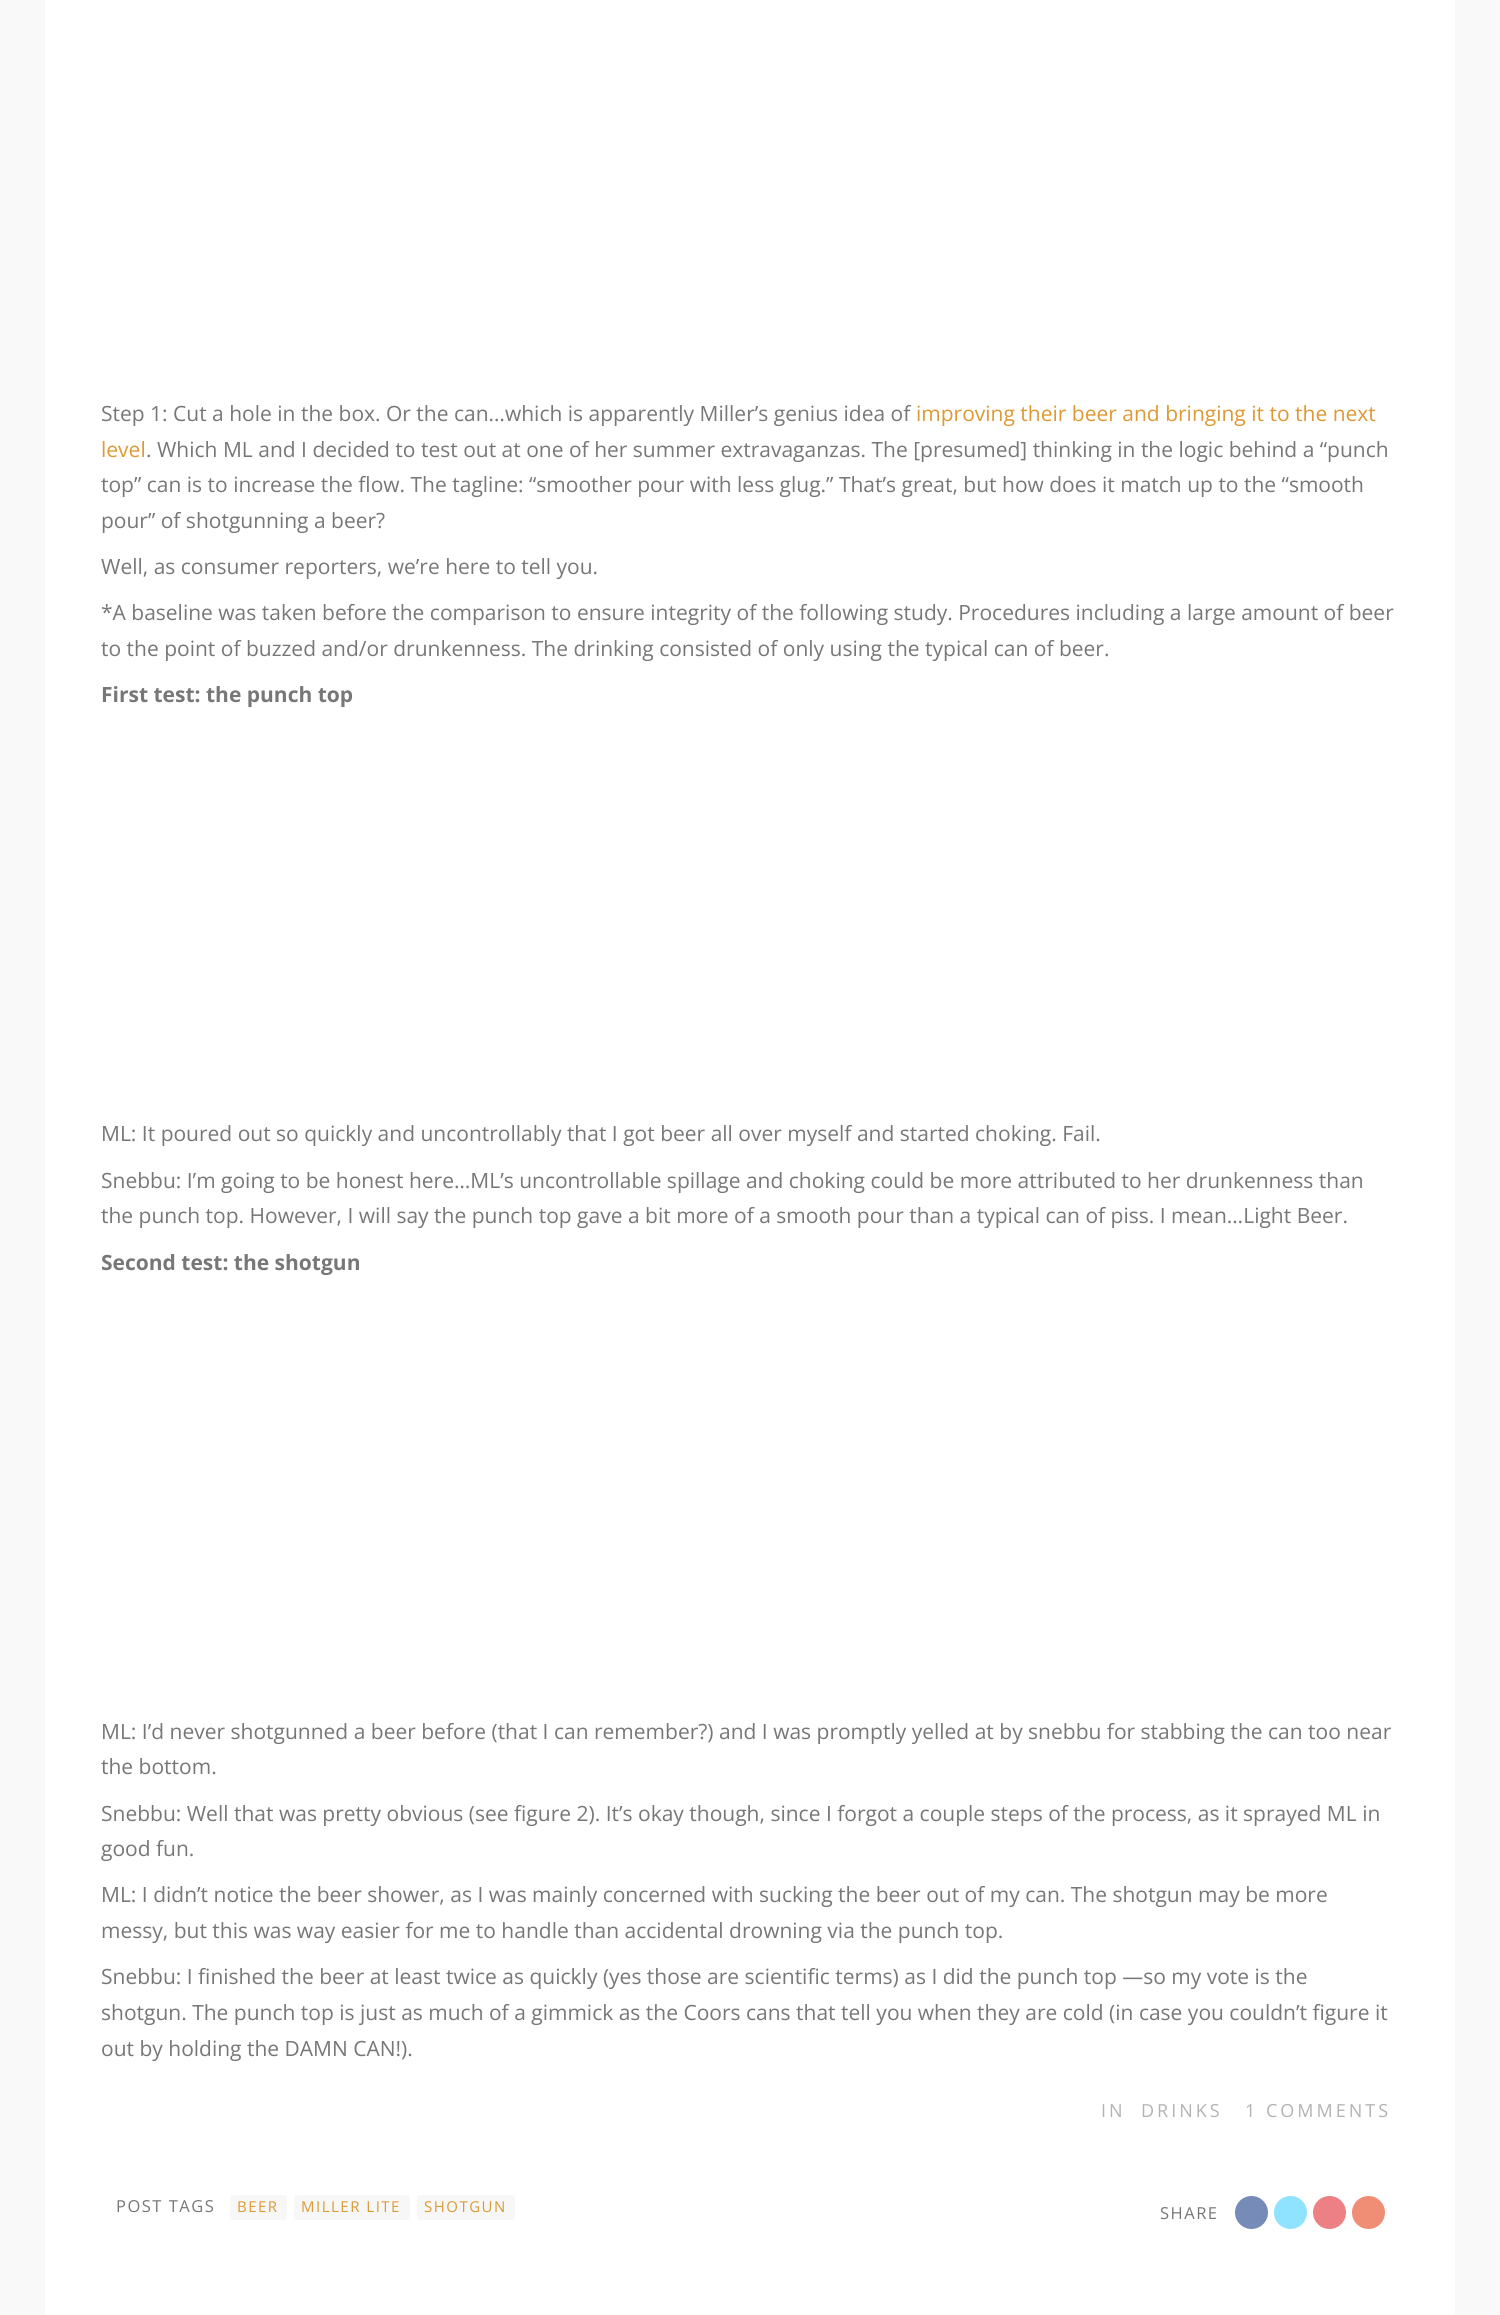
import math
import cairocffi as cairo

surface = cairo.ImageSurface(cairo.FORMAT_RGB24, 1500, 2315)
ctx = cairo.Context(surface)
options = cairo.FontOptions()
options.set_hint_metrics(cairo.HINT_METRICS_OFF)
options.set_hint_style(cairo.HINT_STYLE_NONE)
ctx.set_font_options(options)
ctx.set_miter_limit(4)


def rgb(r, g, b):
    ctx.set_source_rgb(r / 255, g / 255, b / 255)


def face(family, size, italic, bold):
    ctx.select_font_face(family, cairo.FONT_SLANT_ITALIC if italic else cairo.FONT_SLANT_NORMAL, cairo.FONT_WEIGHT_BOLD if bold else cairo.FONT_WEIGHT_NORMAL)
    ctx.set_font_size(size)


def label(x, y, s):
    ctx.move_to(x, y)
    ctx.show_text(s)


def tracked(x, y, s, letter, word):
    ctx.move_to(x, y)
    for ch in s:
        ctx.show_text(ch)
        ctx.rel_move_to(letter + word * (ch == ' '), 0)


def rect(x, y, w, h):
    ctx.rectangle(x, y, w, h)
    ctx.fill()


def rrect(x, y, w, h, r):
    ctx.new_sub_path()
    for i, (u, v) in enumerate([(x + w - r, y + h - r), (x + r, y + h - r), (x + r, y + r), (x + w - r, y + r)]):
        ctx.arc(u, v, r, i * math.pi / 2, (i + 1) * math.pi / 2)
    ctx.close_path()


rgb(249, 249, 249)
ctx.paint()
rgb(255, 255, 255)
rect(45, 0, 1410, 2315)
face('Open Sans', 21, 0, 0)
rgb(119, 119, 119)
label(101, 421, 'Step 1: Cut a hole in the box. Or the can…which is apparently Miller’s genius idea of')
rgb(221, 153, 51)
label(916, 421, 'improving their beer and bringing it to the next')
label(101, 457, 'level')
rgb(119, 119, 119)
label(146, 457, '. Which ML and I decided to test out at one of her summer extravaganzas. The [presumed] thinking in the logic behind a “punch')
label(101, 492, 'top” can is to increase the flow. The tagline: “smoother pour with less glug.” That’s great, but how does it match up to the “smooth')
label(101, 528, 'pour” of shotgunning a beer?')
label(101, 574, 'Well, as consumer reporters, we’re here to tell you.')
label(101, 620, '*A baseline was taken before the comparison to ensure integrity of the following study. Procedures including a large amount of beer')
label(101, 656, 'to the point of buzzed and/or drunkenness. The drinking consisted of only using the typical can of beer.')
face('Open Sans', 21, 0, 1)
label(101, 702, 'First test: the punch top')
face('Open Sans', 21, 0, 0)
label(101, 1141, 'ML: It poured out so quickly and uncontrollably that I got beer all over myself and started choking. Fail.')
label(101, 1188, 'Snebbu: I’m going to be honest here…ML’s uncontrollable spillage and choking could be more attributed to her drunkenness than')
label(101, 1223, 'the punch top. However, I will say the punch top gave a bit more of a smooth pour than a typical can of piss. I mean…Light Beer.')
face('Open Sans', 21, 0, 1)
label(101, 1270, 'Second test: the shotgun')
face('Open Sans', 21, 0, 0)
label(101, 1739, 'ML: I’d never shotgunned a beer before (that I can remember?) and I was promptly yelled at by snebbu for stabbing the can too near')
label(101, 1774, 'the bottom.')
label(101, 1821, 'Snebbu: Well that was pretty obvious (see figure 2). It’s okay though, since I forgot a couple steps of the process, as it sprayed ML in')
label(101, 1856, 'good fun.')
label(101, 1902, 'ML: I didn’t notice the beer shower, as I was mainly concerned with sucking the beer out of my can. The shotgun may be more')
label(101, 1938, 'messy, but this was way easier for me to handle than accidental drowning via the punch top.')
label(101, 1984, 'Snebbu: I finished the beer at least twice as quickly (yes those are scientific terms) as I did the punch top —so my vote is the')
label(101, 2020, 'shotgun. The punch top is just as much of a gimmick as the Coors cans that tell you when they are cold (in case you couldn’t figure it')
label(101, 2056, 'out by holding the DAMN CAN!).')
face('Open Sans', 18, 0, 0)
rgb(179, 179, 177)
tracked(1101, 2117, 'IN', 3, 0)
tracked(1141, 2117, 'DRINKS', 3, 0)
tracked(1245, 2117, '1 COMMENTS', 3, 0)
face('Open Sans', 16.5, 0, 0)
rgb(119, 119, 119)
tracked(116, 2212, 'POST TAGS', 1.5, 0)
rgb(247, 247, 247)
rrect(230, 2195, 57, 25, 3)
ctx.fill()
face('Open Sans', 15, 0, 0)
rgb(221, 153, 51)
tracked(237, 2212, 'BEER', 1.5, 0)
rgb(247, 247, 247)
rrect(294, 2195, 116, 25, 3)
ctx.fill()
rgb(221, 153, 51)
tracked(301, 2212, 'MILLER LITE', 1.5, 0)
rgb(247, 247, 247)
rrect(417, 2195, 98, 25, 3)
ctx.fill()
rgb(221, 153, 51)
tracked(424, 2212, 'SHOTGUN', 1.5, 0)
face('Open Sans', 16.5, 0, 0)
rgb(119, 119, 119)
tracked(1160, 2219, 'SHARE', 1.5, 0)
rgb(119, 139, 185)
ctx.new_path()
ctx.arc(1251.5, 2212.5, 16.5, 0, 2 * math.pi)
ctx.fill()
rgb(144, 227, 254)
ctx.arc(1290.5, 2212.5, 16.5, 0, 2 * math.pi)
ctx.fill()
rgb(237, 128, 132)
ctx.arc(1329.5, 2212.5, 16.5, 0, 2 * math.pi)
ctx.fill()
rgb(239, 142, 117)
ctx.arc(1368.5, 2212.5, 16.5, 0, 2 * math.pi)
ctx.fill()
surface.write_to_png('render.png')
